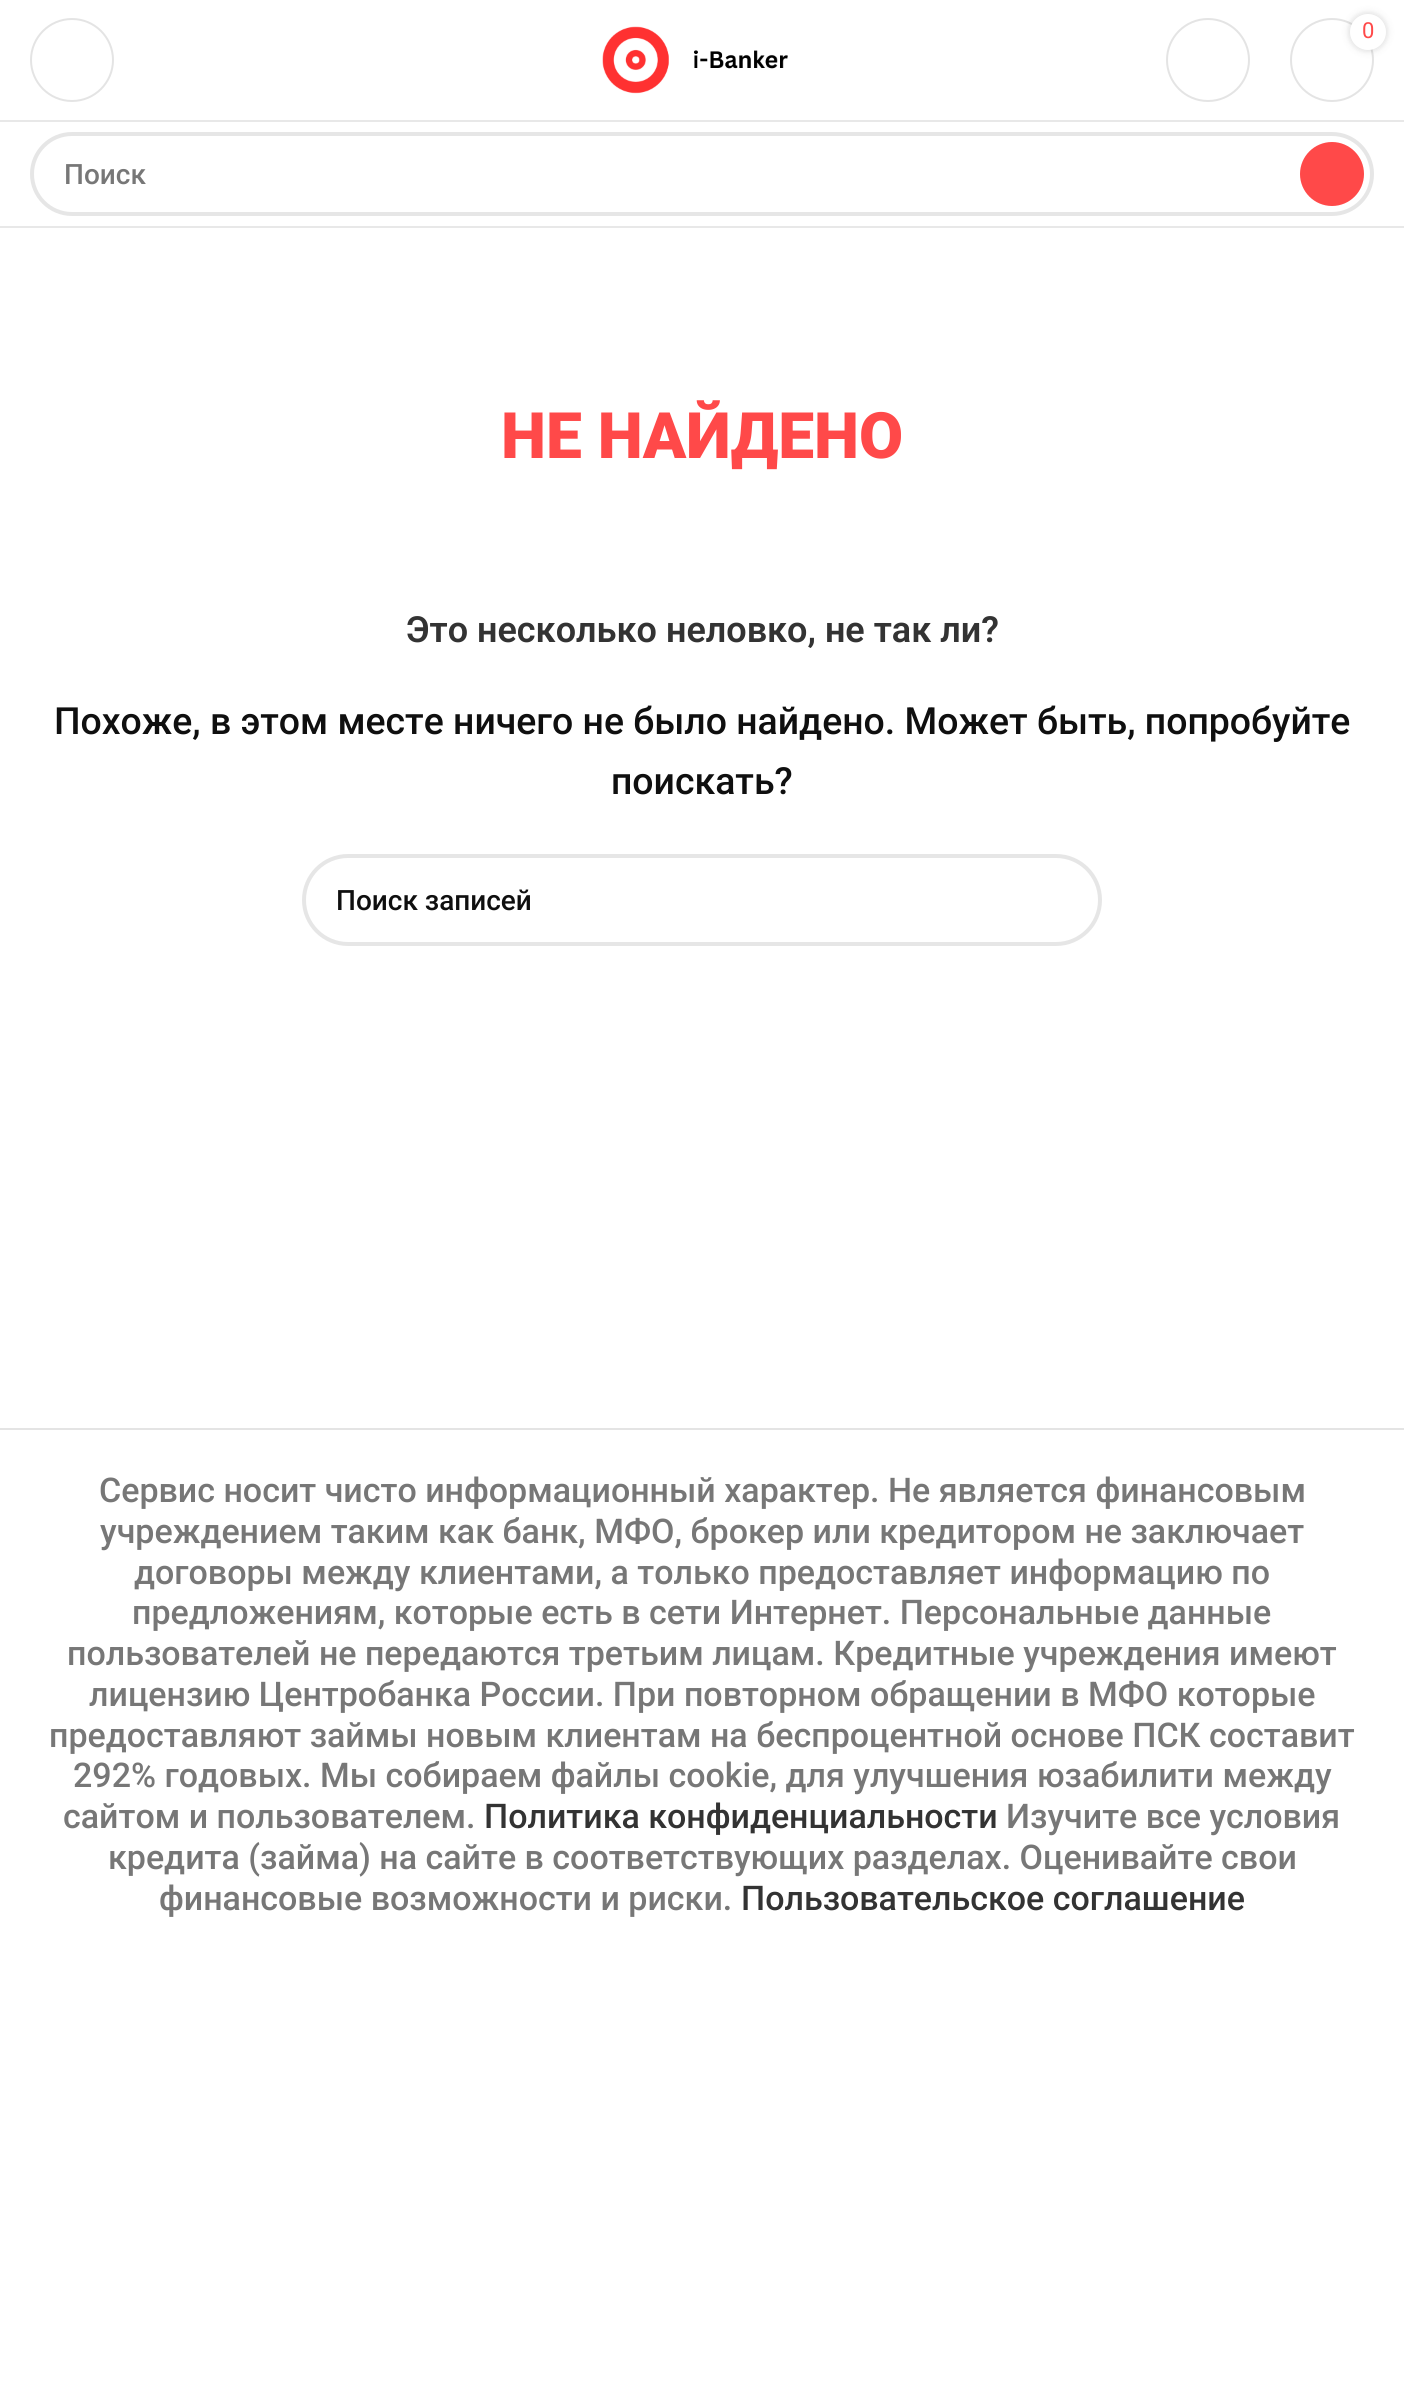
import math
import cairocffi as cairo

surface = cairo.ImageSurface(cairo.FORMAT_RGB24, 1404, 2400)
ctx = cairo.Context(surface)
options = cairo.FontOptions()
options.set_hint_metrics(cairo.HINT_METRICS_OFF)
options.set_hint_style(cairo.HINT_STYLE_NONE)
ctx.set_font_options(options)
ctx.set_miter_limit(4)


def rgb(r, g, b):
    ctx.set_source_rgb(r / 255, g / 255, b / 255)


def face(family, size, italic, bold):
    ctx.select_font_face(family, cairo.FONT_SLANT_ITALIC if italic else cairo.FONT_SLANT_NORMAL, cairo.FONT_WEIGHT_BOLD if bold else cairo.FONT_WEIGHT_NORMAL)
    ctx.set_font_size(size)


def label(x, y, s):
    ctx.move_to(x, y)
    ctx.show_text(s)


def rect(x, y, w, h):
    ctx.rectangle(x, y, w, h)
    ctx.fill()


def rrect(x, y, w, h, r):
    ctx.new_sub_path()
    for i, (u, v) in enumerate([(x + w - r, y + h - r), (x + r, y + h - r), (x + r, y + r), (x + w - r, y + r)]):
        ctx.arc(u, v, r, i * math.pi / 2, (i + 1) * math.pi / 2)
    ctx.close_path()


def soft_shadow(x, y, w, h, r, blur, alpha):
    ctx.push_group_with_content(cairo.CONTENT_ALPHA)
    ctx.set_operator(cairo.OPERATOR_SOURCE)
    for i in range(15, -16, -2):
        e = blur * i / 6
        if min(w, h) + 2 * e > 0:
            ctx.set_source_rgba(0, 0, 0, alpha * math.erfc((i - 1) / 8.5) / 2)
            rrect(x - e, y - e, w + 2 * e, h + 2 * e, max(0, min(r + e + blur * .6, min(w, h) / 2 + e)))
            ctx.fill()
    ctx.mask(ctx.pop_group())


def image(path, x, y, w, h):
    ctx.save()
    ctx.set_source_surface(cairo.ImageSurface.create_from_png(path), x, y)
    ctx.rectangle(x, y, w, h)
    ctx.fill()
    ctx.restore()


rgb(255, 255, 255)
ctx.paint()
rgb(232, 232, 232)
rect(0, 120, 1404, 2)
ctx.arc(72, 60, 41, 0, 2 * math.pi)
rgb(228, 228, 228)
ctx.stroke()
image('image0.png', 602, 26, 186, 68)
ctx.arc(1208, 60, 41, 0, 2 * math.pi)
ctx.stroke()
ctx.arc(1332, 60, 41, 0, 2 * math.pi)
ctx.stroke()
rgb(0, 0, 0)
soft_shadow(1350, 14, 36, 36, 18, 4, 0.17)
rgb(255, 255, 255)
ctx.arc(1368, 32, 18, 0, 2 * math.pi)
ctx.fill()
face('Roboto', 22, 0, 0)
rgb(255, 73, 73)
label(1362, 38, '0')
rgb(232, 232, 232)
rect(0, 226, 1404, 2)
rrect(32, 134, 1340, 80, 40)
rgb(230, 230, 230)
ctx.set_line_width(4)
ctx.stroke()
face('Roboto Medium', 28, 0, 0)
rgb(119, 119, 119)
label(64, 184, 'Поиск')
rgb(255, 73, 73)
ctx.new_path()
ctx.arc(1332, 174, 32, 0, 2 * math.pi)
ctx.fill()
face('Roboto Black', 64, 0, 0)
label(501, 458, 'НЕ НАЙДЕНО')
face('Roboto SemiBold', 36, 0, 0)
rgb(51, 51, 51)
label(406, 642, 'Это несколько неловко, не так ли?')
face('Roboto Medium', 37.4, 0, 0)
rgb(15, 15, 15)
label(54, 734, 'Похоже, в этом месте ничего не было найдено. Может быть, попробуйте')
label(611, 794, 'поискать?')
rrect(304, 856, 796, 88, 44)
rgb(230, 230, 230)
ctx.stroke()
face('Roboto Medium', 28, 0, 0)
rgb(15, 15, 15)
label(336, 910, 'Поиск записей')
rgb(228, 228, 228)
rect(0, 1428, 1404, 2)
face('Roboto Medium', 34, 0, 0)
rgb(119, 119, 119)
label(99, 1502, 'Сервис носит чисто информационный характер. Не является финансовым')
label(100, 1543, 'учреждением таким как банк, МФО, брокер или кредитором не заключает')
label(134, 1584, 'договоры между клиентами, а только предоставляет информацию по')
label(132, 1624, 'предложениям, которые есть в сети Интернет. Персональные данные')
label(67, 1665, 'пользователей не передаются третьим лицам. Кредитные учреждения имеют')
label(89, 1706, 'лицензию Центробанка России. При повторном обращении в МФО которые')
label(49, 1747, 'предоставляют займы новым клиентам на беспроцентной основе ПСК составит')
label(73, 1787, '292% годовых. Мы собираем файлы cookie, для улучшения юзабилити между')
label(63, 1828, 'сайтом и пользователем.')
rgb(51, 51, 51)
label(484, 1828, 'Политика конфиденциальности')
rgb(119, 119, 119)
label(1006, 1828, 'Изучите все условия')
label(108, 1869, 'кредита (займа) на сайте в соответствующих разделах. Оценивайте свои')
label(159, 1910, 'финансовые возможности и риски.')
rgb(51, 51, 51)
label(741, 1910, 'Пользовательское соглашение')
surface.write_to_png('render.png')
